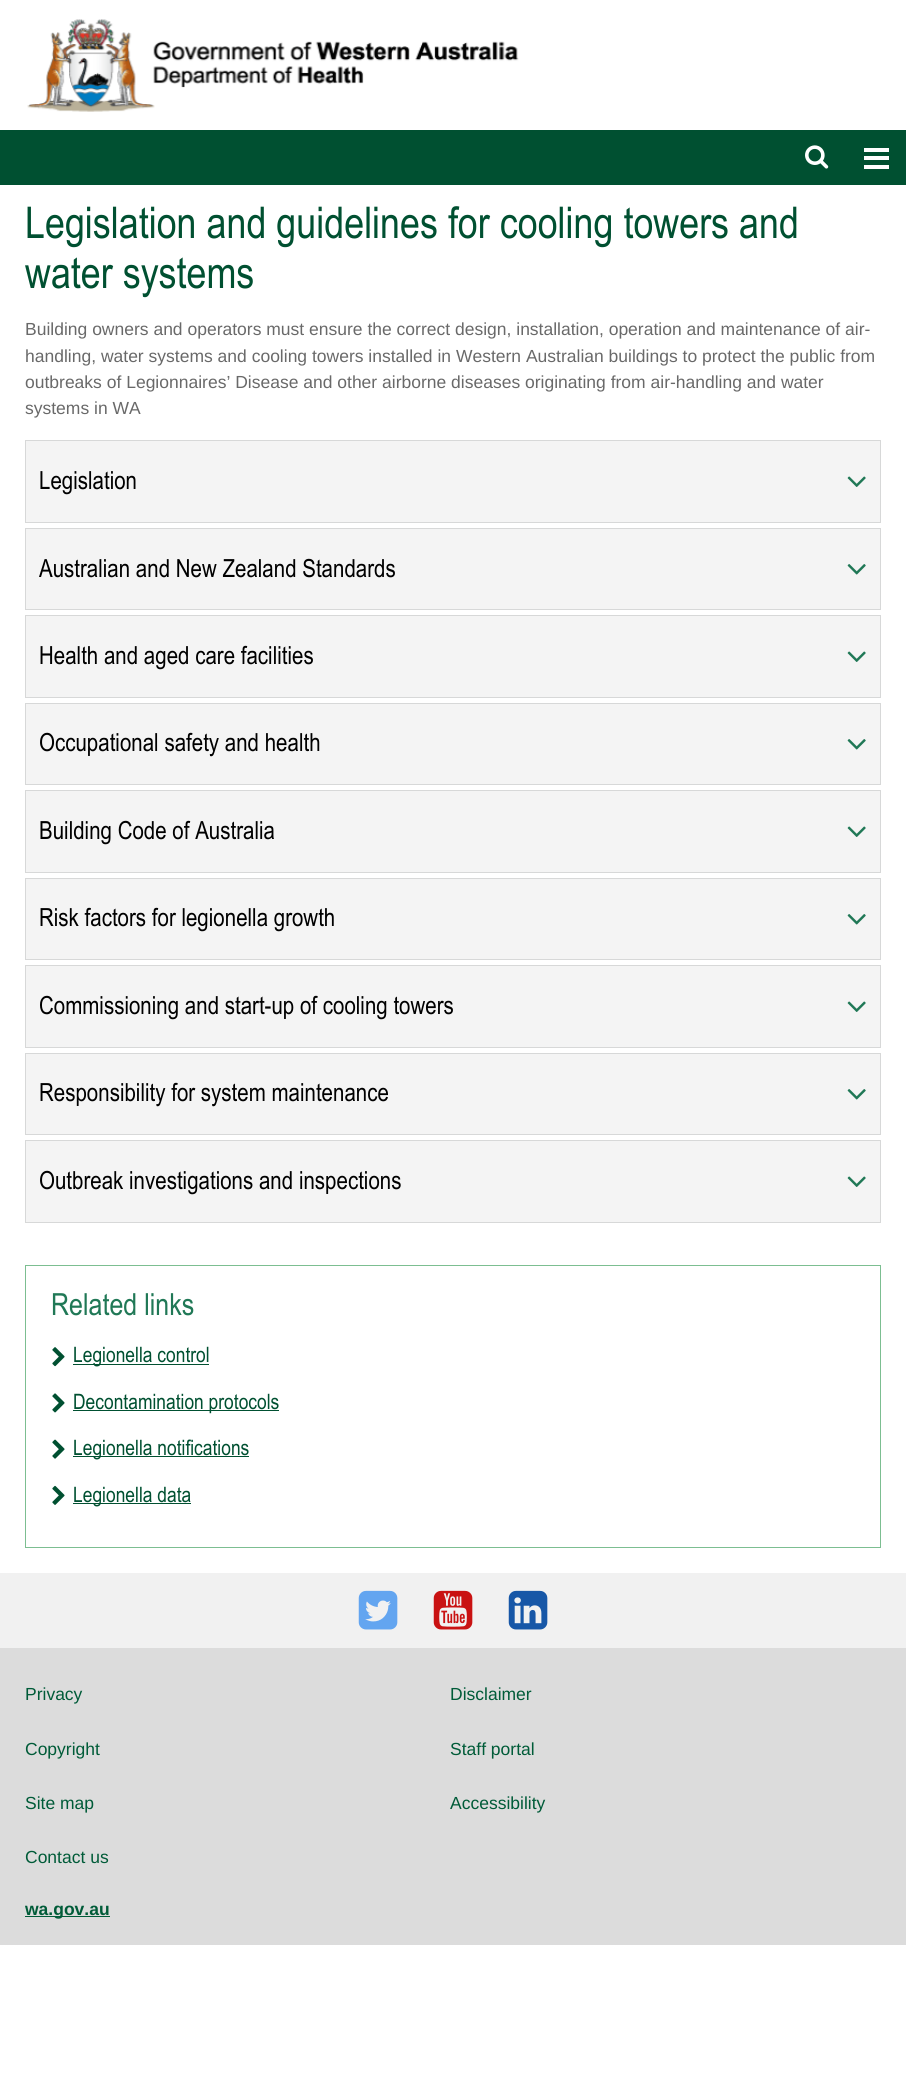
import math
import cairocffi as cairo

surface = cairo.ImageSurface(cairo.FORMAT_RGB24, 906, 2074)
ctx = cairo.Context(surface)
options = cairo.FontOptions()
options.set_hint_metrics(cairo.HINT_METRICS_OFF)
options.set_hint_style(cairo.HINT_STYLE_NONE)
ctx.set_font_options(options)
ctx.set_miter_limit(4)


def rgb(r, g, b):
    ctx.set_source_rgb(r / 255, g / 255, b / 255)


def face(family, size, italic, bold):
    ctx.select_font_face(family, cairo.FONT_SLANT_ITALIC if italic else cairo.FONT_SLANT_NORMAL, cairo.FONT_WEIGHT_BOLD if bold else cairo.FONT_WEIGHT_NORMAL)
    ctx.set_font_size(size)


def label(x, y, s):
    ctx.move_to(x, y)
    ctx.show_text(s)


def rect(x, y, w, h):
    ctx.rectangle(x, y, w, h)
    ctx.fill()


def image(path, x, y, w, h):
    ctx.save()
    ctx.set_source_surface(cairo.ImageSurface.create_from_png(path), x, y)
    ctx.rectangle(x, y, w, h)
    ctx.fill()
    ctx.restore()


rgb(255, 255, 255)
ctx.paint()
image('image0.png', 27, 19, 492, 93)
rgb(0, 80, 49)
rect(0, 130, 906, 55)
image('image1.png', 805, 145, 24, 24)
rgb(255, 255, 255)
rect(864, 156, 25, 4)
rect(864, 148, 25, 4)
rect(864, 165, 25, 4)
face('Arial', 43.75, 0, 0)
rgb(0, 80, 49)
label(25, 238, 'Legislation and guidelines for cooling towers and')
label(25, 288, 'water systems')
face('Liberation Sans', 17.5, 0, 0)
rgb(105, 105, 105)
label(25, 335, 'Building owners and operators must ensure the correct design, installation, operation and maintenance of air-')
label(25, 362, 'handling, water systems and cooling towers installed in Western Australian buildings to protect the public from')
label(25, 388, 'outbreaks of Legionnaires’ Disease and other airborne diseases originating from air-handling and water')
label(25, 414, 'systems in WA')
rgb(244, 244, 244)
ctx.rectangle(25.5, 440.5, 855, 82)
ctx.fill_preserve()
rgb(215, 216, 216)
ctx.set_line_width(1)
ctx.stroke()
face('Arial', 25, 0, 0)
rgb(0, 0, 0)
label(39, 489, 'Legislation')
image('image2.png', 847, 476, 19, 11)
rgb(244, 244, 244)
ctx.rectangle(25.5, 528.5, 855, 81)
ctx.fill_preserve()
rgb(215, 216, 216)
ctx.stroke()
rgb(0, 0, 0)
label(39, 577, 'Australian and New Zealand Standards')
image('image3.png', 847, 564, 19, 11)
rgb(244, 244, 244)
ctx.rectangle(25.5, 615.5, 855, 82)
ctx.fill_preserve()
rgb(215, 216, 216)
ctx.stroke()
rgb(0, 0, 0)
label(39, 664, 'Health and aged care facilities')
image('image2.png', 847, 651, 19, 11)
rgb(244, 244, 244)
ctx.rectangle(25.5, 703.5, 855, 81)
ctx.fill_preserve()
rgb(215, 216, 216)
ctx.stroke()
rgb(0, 0, 0)
label(39, 751, 'Occupational safety and health')
image('image3.png', 847, 739, 19, 11)
rgb(244, 244, 244)
ctx.rectangle(25.5, 790.5, 855, 82)
ctx.fill_preserve()
rgb(215, 216, 216)
ctx.stroke()
rgb(0, 0, 0)
label(39, 839, 'Building Code of Australia')
image('image2.png', 847, 826, 19, 11)
rgb(244, 244, 244)
ctx.rectangle(25.5, 878.5, 855, 81)
ctx.fill_preserve()
rgb(215, 216, 216)
ctx.stroke()
rgb(0, 0, 0)
label(39, 926, 'Risk factors for legionella growth')
image('image3.png', 847, 914, 19, 11)
rgb(244, 244, 244)
ctx.rectangle(25.5, 965.5, 855, 82)
ctx.fill_preserve()
rgb(215, 216, 216)
ctx.stroke()
rgb(0, 0, 0)
label(39, 1014, 'Commissioning and start-up of cooling towers')
image('image2.png', 847, 1001, 19, 11)
rgb(244, 244, 244)
ctx.rectangle(25.5, 1053.5, 855, 81)
ctx.fill_preserve()
rgb(215, 216, 216)
ctx.stroke()
rgb(0, 0, 0)
label(39, 1101, 'Responsibility for system maintenance')
image('image3.png', 847, 1089, 19, 11)
rgb(244, 244, 244)
ctx.rectangle(25.5, 1140.5, 855, 82)
ctx.fill_preserve()
rgb(215, 216, 216)
ctx.stroke()
rgb(0, 0, 0)
label(39, 1189, 'Outbreak investigations and inspections')
image('image2.png', 847, 1176, 19, 11)
ctx.rectangle(25.5, 1265.5, 855, 282)
rgb(124, 190, 145)
ctx.stroke()
face('Arial', 30.5, 0, 0)
rgb(32, 120, 86)
label(51, 1315, 'Related links')
image('image4.png', 52, 1347, 13, 20)
rgb(0, 80, 49)
rect(73, 1364, 136, 1)
face('Arial', 21.25, 0, 0)
label(73, 1362, 'Legionella control')
image('image5.png', 52, 1393, 13, 20)
rect(73, 1410, 206, 1)
label(73, 1409, 'Decontamination protocols')
image('image6.png', 52, 1439, 13, 20)
rect(73, 1456, 176, 1)
label(73, 1455, 'Legionella notifications')
image('image7.png', 52, 1485, 13, 20)
rect(73, 1503, 118, 1)
label(73, 1502, 'Legionella data')
rgb(241, 241, 241)
rect(0, 1573, 906, 75)
image('image8.png', 358, 1590, 40, 40)
image('image9.png', 433, 1590, 40, 40)
image('image10.png', 508, 1590, 40, 40)
rgb(220, 220, 220)
rect(0, 1648, 906, 297)
face('Liberation Sans', 17.5, 0, 0)
rgb(0, 91, 56)
label(25, 1700, 'Privacy')
label(450, 1700, 'Disclaimer')
label(25, 1755, 'Copyright')
label(450, 1755, 'Staff portal')
label(25, 1809, 'Site map')
label(450, 1809, 'Accessibility')
label(25, 1863, 'Contact us')
rect(25, 1916, 85, 1)
face('Liberation Sans', 17.5, 0, 1)
label(25, 1915, 'wa.gov.au')
surface.write_to_png('render.png')
